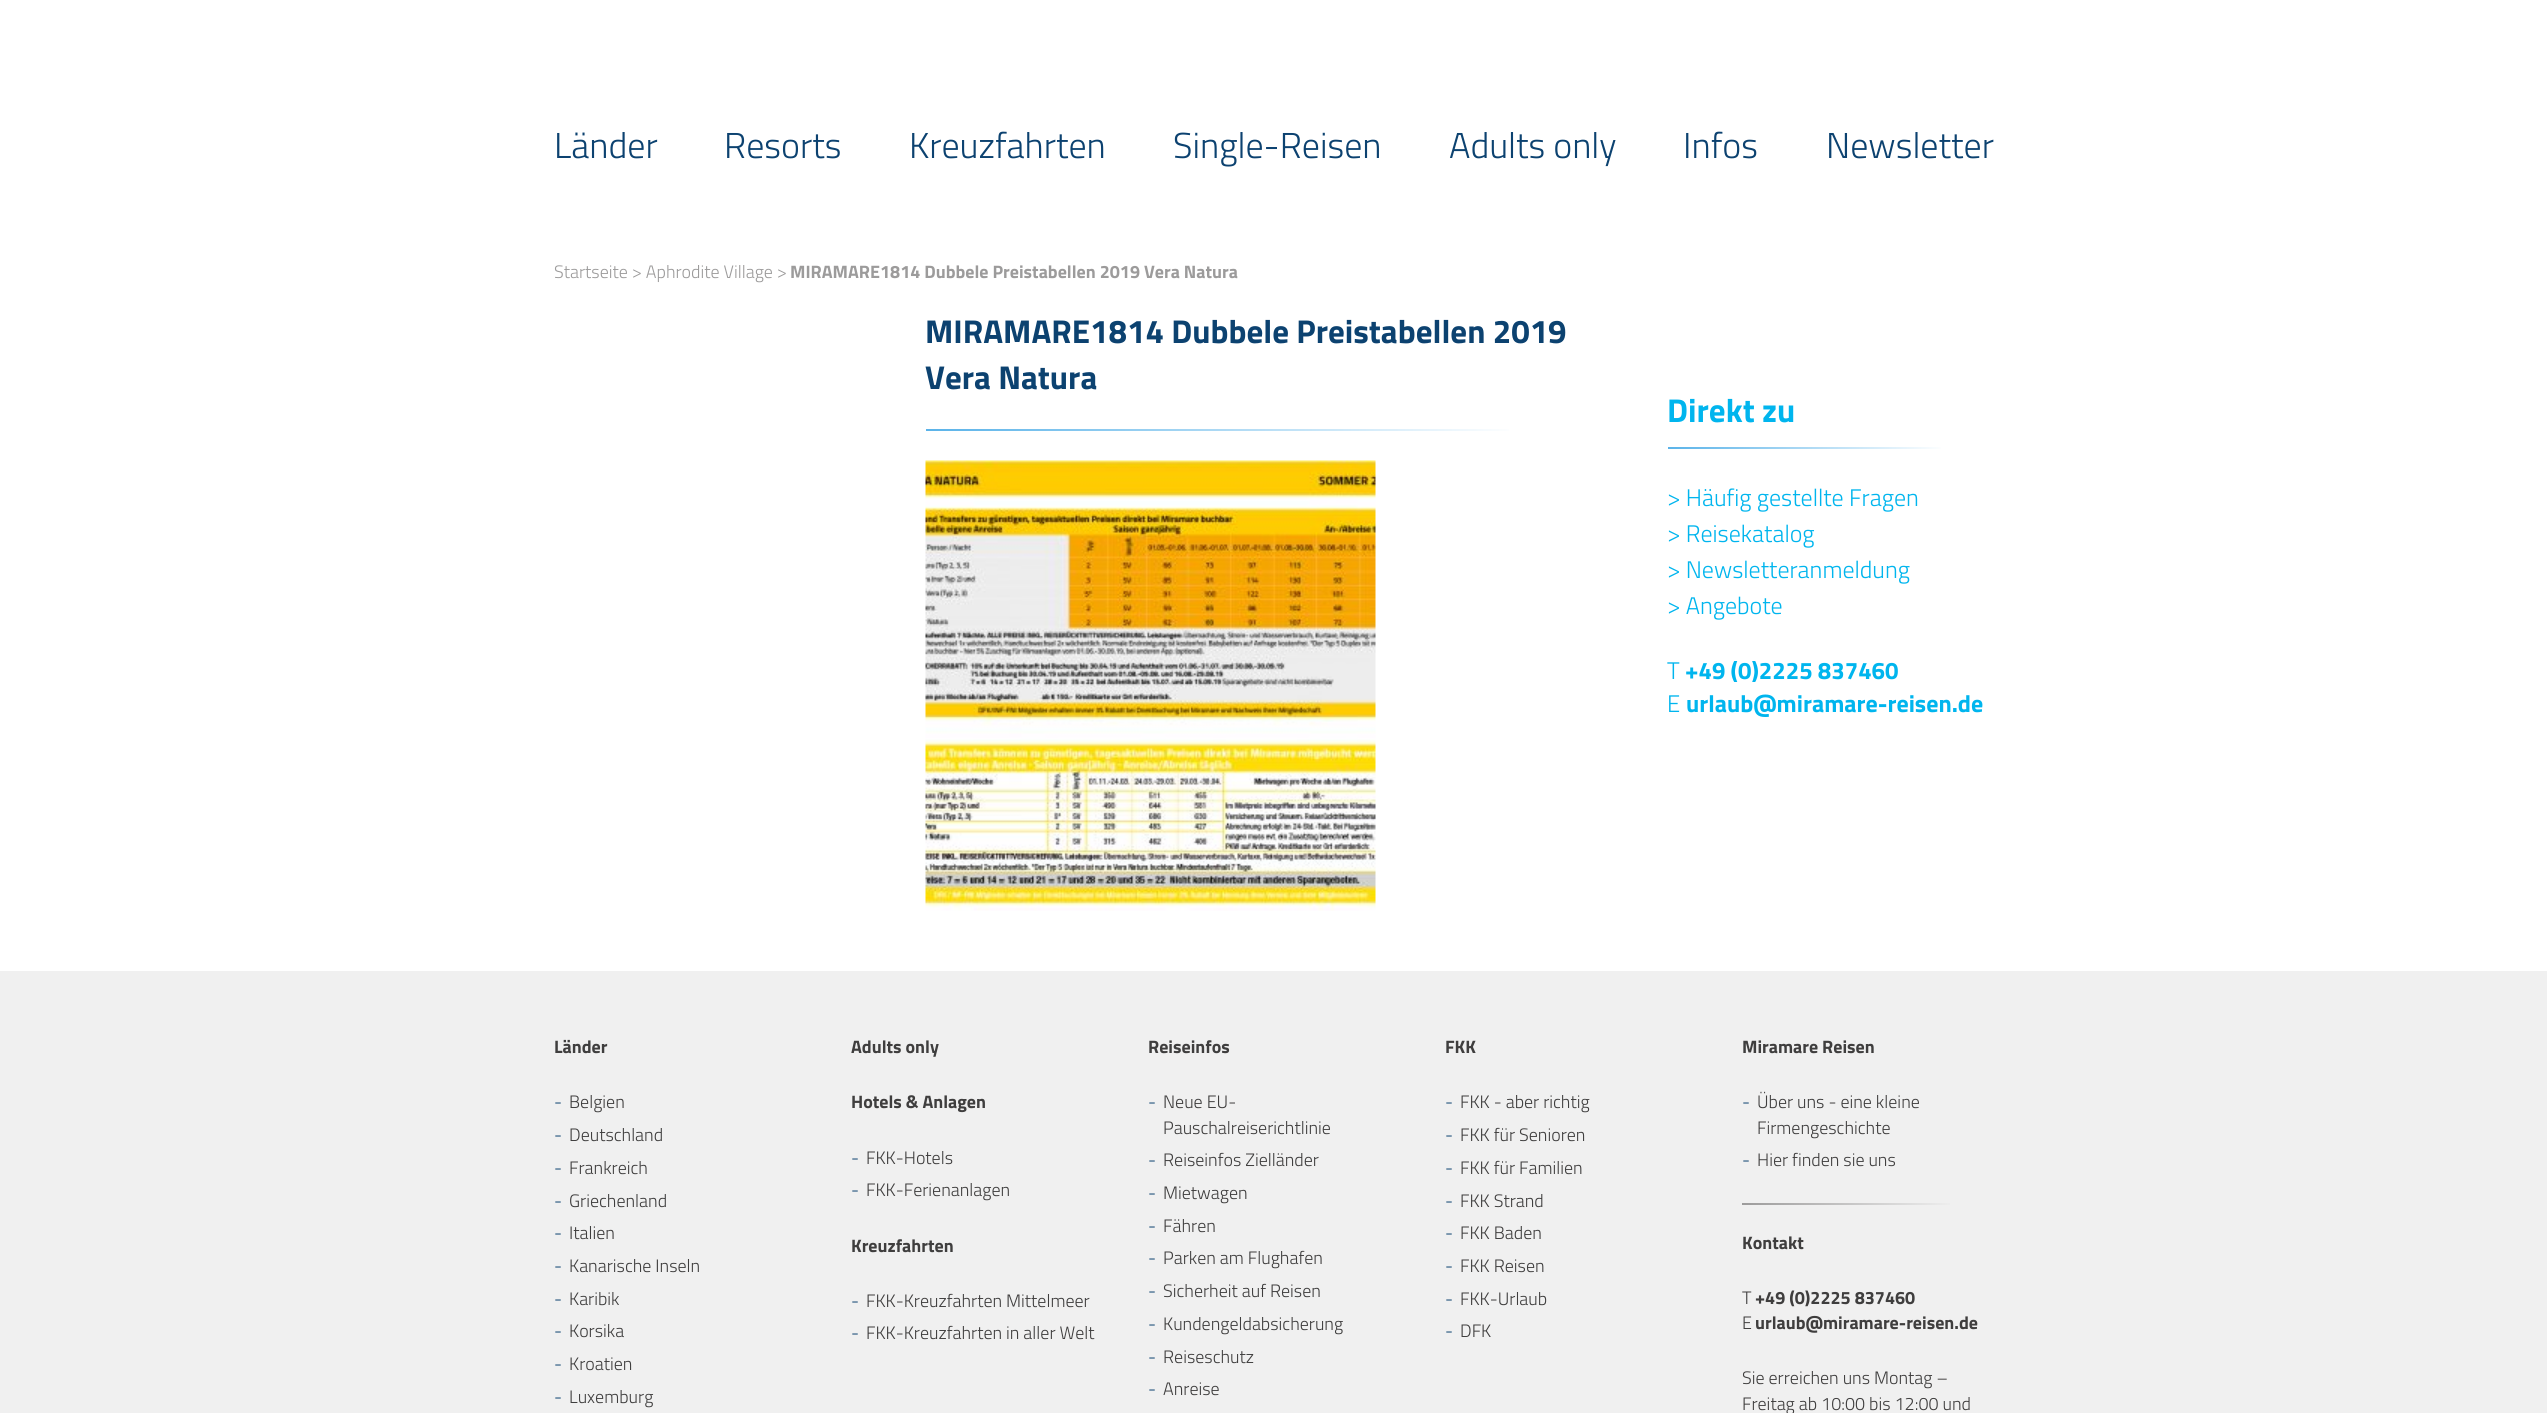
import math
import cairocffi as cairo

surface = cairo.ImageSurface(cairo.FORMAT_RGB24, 2547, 1413)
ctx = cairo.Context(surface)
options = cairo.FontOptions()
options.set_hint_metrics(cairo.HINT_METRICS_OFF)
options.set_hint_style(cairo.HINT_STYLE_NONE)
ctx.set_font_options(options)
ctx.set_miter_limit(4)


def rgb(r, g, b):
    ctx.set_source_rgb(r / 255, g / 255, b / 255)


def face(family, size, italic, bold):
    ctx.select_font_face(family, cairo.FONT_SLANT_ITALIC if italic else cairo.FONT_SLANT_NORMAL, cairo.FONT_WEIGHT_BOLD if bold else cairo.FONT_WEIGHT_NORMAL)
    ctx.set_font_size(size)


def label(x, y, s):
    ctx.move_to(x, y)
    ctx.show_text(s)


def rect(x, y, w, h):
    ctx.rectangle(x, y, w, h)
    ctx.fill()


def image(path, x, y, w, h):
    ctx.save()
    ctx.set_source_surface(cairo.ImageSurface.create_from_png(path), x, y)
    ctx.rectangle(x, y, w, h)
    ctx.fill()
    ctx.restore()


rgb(255, 255, 255)
ctx.paint()
face('Titillium Web Light', 36, 0, 0)
rgb(12, 66, 112)
label(554, 158, 'Länder')
label(724, 158, 'Resorts')
label(909, 158, 'Kreuzfahrten')
label(1173, 158, 'Single-Reisen')
label(1449, 158, 'Adults only')
label(1683, 158, 'Infos')
label(1826, 158, 'Newsletter')
face('Titillium Web Light', 18, 0, 0)
rgb(156, 155, 155)
label(554, 278, 'Startseite > Aphrodite Village >')
face('Titillium Web', 18, 0, 1)
label(790, 278, 'MIRAMARE1814 Dubbele Preistabellen 2019 Vera Natura')
face('Titillium Web', 33, 0, 1)
rgb(12, 66, 112)
label(925, 343, 'MIRAMARE1814 Dubbele Preistabellen 2019')
label(925, 389, 'Vera Natura')
gradient = cairo.LinearGradient(1623, 430, 926, 430)
gradient.add_color_stop_rgba(0.15, 1, 1, 1, 1)
gradient.add_color_stop_rgba(1, 0.353, 0.702, 0.914, 1)
ctx.set_source(gradient)
rect(926, 429, 583, 2)
image('image0.png', 925, 460, 451, 451)
rgb(0, 181, 238)
label(1667, 422, 'Direkt zu')
gradient = cairo.LinearGradient(1994, 448, 1668, 448)
gradient.add_color_stop_rgba(0.15, 1, 1, 1, 1)
gradient.add_color_stop_rgba(1, 0.353, 0.702, 0.914, 1)
ctx.set_source(gradient)
rect(1668, 447, 273, 2)
face('Titillium Web Light', 24, 0, 0)
rgb(0, 181, 238)
label(1667, 506, '> Häufig gestellte Fragen')
label(1667, 542, '> Reisekatalog')
label(1667, 578, '> Newsletteranmeldung')
label(1667, 614, '> Angebote')
label(1667, 679, 'T')
face('Titillium Web', 24, 0, 1)
label(1685, 679, '+49 (0)2225 837460')
face('Titillium Web Light', 24, 0, 0)
label(1667, 712, 'E')
face('Titillium Web', 24, 0, 1)
label(1686, 712, 'urlaub@miramare-reisen.de')
rgb(240, 240, 240)
rect(0, 971, 2547, 442)
face('Titillium Web', 18, 0, 1)
rgb(63, 62, 62)
label(554, 1053, 'Länder')
face('Titillium Web Light', 18, 0, 0)
rgb(12, 66, 112)
label(554, 1108, '-')
rgb(63, 62, 62)
label(569, 1108, 'Belgien')
rgb(12, 66, 112)
label(554, 1141, '-')
rgb(63, 62, 62)
label(569, 1141, 'Deutschland')
rgb(12, 66, 112)
label(554, 1174, '-')
rgb(63, 62, 62)
label(569, 1174, 'Frankreich')
rgb(12, 66, 112)
label(554, 1207, '-')
rgb(63, 62, 62)
label(569, 1207, 'Griechenland')
rgb(12, 66, 112)
label(554, 1239, '-')
rgb(63, 62, 62)
label(569, 1239, 'Italien')
rgb(12, 66, 112)
label(554, 1272, '-')
rgb(63, 62, 62)
label(569, 1272, 'Kanarische Inseln')
rgb(12, 66, 112)
label(554, 1305, '-')
rgb(63, 62, 62)
label(569, 1305, 'Karibik')
rgb(12, 66, 112)
label(554, 1337, '-')
rgb(63, 62, 62)
label(569, 1337, 'Korsika')
rgb(12, 66, 112)
label(554, 1370, '-')
rgb(63, 62, 62)
label(569, 1370, 'Kroatien')
rgb(12, 66, 112)
label(554, 1403, '-')
rgb(63, 62, 62)
label(569, 1403, 'Luxemburg')
face('Titillium Web', 18, 0, 1)
label(851, 1053, 'Adults only')
label(851, 1108, 'Hotels & Anlagen')
face('Titillium Web Light', 18, 0, 0)
rgb(12, 66, 112)
label(851, 1164, '-')
rgb(63, 62, 62)
label(866, 1164, 'FKK-Hotels')
rgb(12, 66, 112)
label(851, 1196, '-')
rgb(63, 62, 62)
label(866, 1196, 'FKK-Ferienanlagen')
face('Titillium Web', 18, 0, 1)
label(851, 1252, 'Kreuzfahrten')
face('Titillium Web Light', 18, 0, 0)
rgb(12, 66, 112)
label(851, 1307, '-')
rgb(63, 62, 62)
label(866, 1307, 'FKK-Kreuzfahrten Mittelmeer')
rgb(12, 66, 112)
label(851, 1339, '-')
rgb(63, 62, 62)
label(866, 1339, 'FKK-Kreuzfahrten in aller Welt')
face('Titillium Web', 18, 0, 1)
label(1148, 1053, 'Reiseinfos')
face('Titillium Web Light', 18, 0, 0)
rgb(12, 66, 112)
label(1148, 1108, '-')
rgb(63, 62, 62)
label(1163, 1108, 'Neue EU-')
label(1163, 1134, 'Pauschalreiserichtlinie')
rgb(12, 66, 112)
label(1148, 1166, '-')
rgb(63, 62, 62)
label(1163, 1166, 'Reiseinfos Zielländer')
rgb(12, 66, 112)
label(1148, 1199, '-')
rgb(63, 62, 62)
label(1163, 1199, 'Mietwagen')
rgb(12, 66, 112)
label(1148, 1232, '-')
rgb(63, 62, 62)
label(1163, 1232, 'Fähren')
rgb(12, 66, 112)
label(1148, 1264, '-')
rgb(63, 62, 62)
label(1163, 1264, 'Parken am Flughafen')
rgb(12, 66, 112)
label(1148, 1297, '-')
rgb(63, 62, 62)
label(1163, 1297, 'Sicherheit auf Reisen')
rgb(12, 66, 112)
label(1148, 1330, '-')
rgb(63, 62, 62)
label(1163, 1330, 'Kundengeldabsicherung')
rgb(12, 66, 112)
label(1148, 1363, '-')
rgb(63, 62, 62)
label(1163, 1363, 'Reiseschutz')
rgb(12, 66, 112)
label(1148, 1395, '-')
rgb(63, 62, 62)
label(1163, 1395, 'Anreise')
face('Titillium Web', 18, 0, 1)
label(1445, 1053, 'FKK')
face('Titillium Web Light', 18, 0, 0)
rgb(12, 66, 112)
label(1445, 1108, '-')
rgb(63, 62, 62)
label(1460, 1108, 'FKK - aber richtig')
rgb(12, 66, 112)
label(1445, 1141, '-')
rgb(63, 62, 62)
label(1460, 1141, 'FKK für Senioren')
rgb(12, 66, 112)
label(1445, 1174, '-')
rgb(63, 62, 62)
label(1460, 1174, 'FKK für Familien')
rgb(12, 66, 112)
label(1445, 1207, '-')
rgb(63, 62, 62)
label(1460, 1207, 'FKK Strand')
rgb(12, 66, 112)
label(1445, 1239, '-')
rgb(63, 62, 62)
label(1460, 1239, 'FKK Baden')
rgb(12, 66, 112)
label(1445, 1272, '-')
rgb(63, 62, 62)
label(1460, 1272, 'FKK Reisen')
rgb(12, 66, 112)
label(1445, 1305, '-')
rgb(63, 62, 62)
label(1460, 1305, 'FKK-Urlaub')
rgb(12, 66, 112)
label(1445, 1337, '-')
rgb(63, 62, 62)
label(1460, 1337, 'DFK')
face('Titillium Web', 18, 0, 1)
label(1742, 1053, 'Miramare Reisen')
face('Titillium Web Light', 18, 0, 0)
rgb(12, 66, 112)
label(1742, 1108, '-')
rgb(63, 62, 62)
label(1757, 1108, 'Über uns - eine kleine')
label(1757, 1134, 'Firmengeschichte')
rgb(12, 66, 112)
label(1742, 1166, '-')
rgb(63, 62, 62)
label(1757, 1166, 'Hier finden sie uns')
gradient = cairo.LinearGradient(1994, 1204, 1742, 1204)
gradient.add_color_stop_rgba(0.15, 0.941, 0.941, 0.941, 1)
gradient.add_color_stop_rgba(1, 0.612, 0.608, 0.608, 1)
ctx.set_source(gradient)
rect(1742, 1203, 208, 2)
face('Titillium Web', 18, 0, 1)
rgb(63, 62, 62)
label(1742, 1249, 'Kontakt')
face('Titillium Web Light', 18, 0, 0)
label(1742, 1304, 'T')
face('Titillium Web', 18, 0, 1)
label(1755, 1304, '+49 (0)2225 837460')
face('Titillium Web Light', 18, 0, 0)
label(1742, 1329, 'E')
face('Titillium Web', 18, 0, 1)
label(1755, 1329, 'urlaub@miramare-reisen.de')
face('Titillium Web Light', 18, 0, 0)
label(1742, 1384, 'Sie erreichen uns Montag –')
label(1742, 1410, 'Freitag ab 10:00 bis 12:00 und')
surface.write_to_png('render.png')
